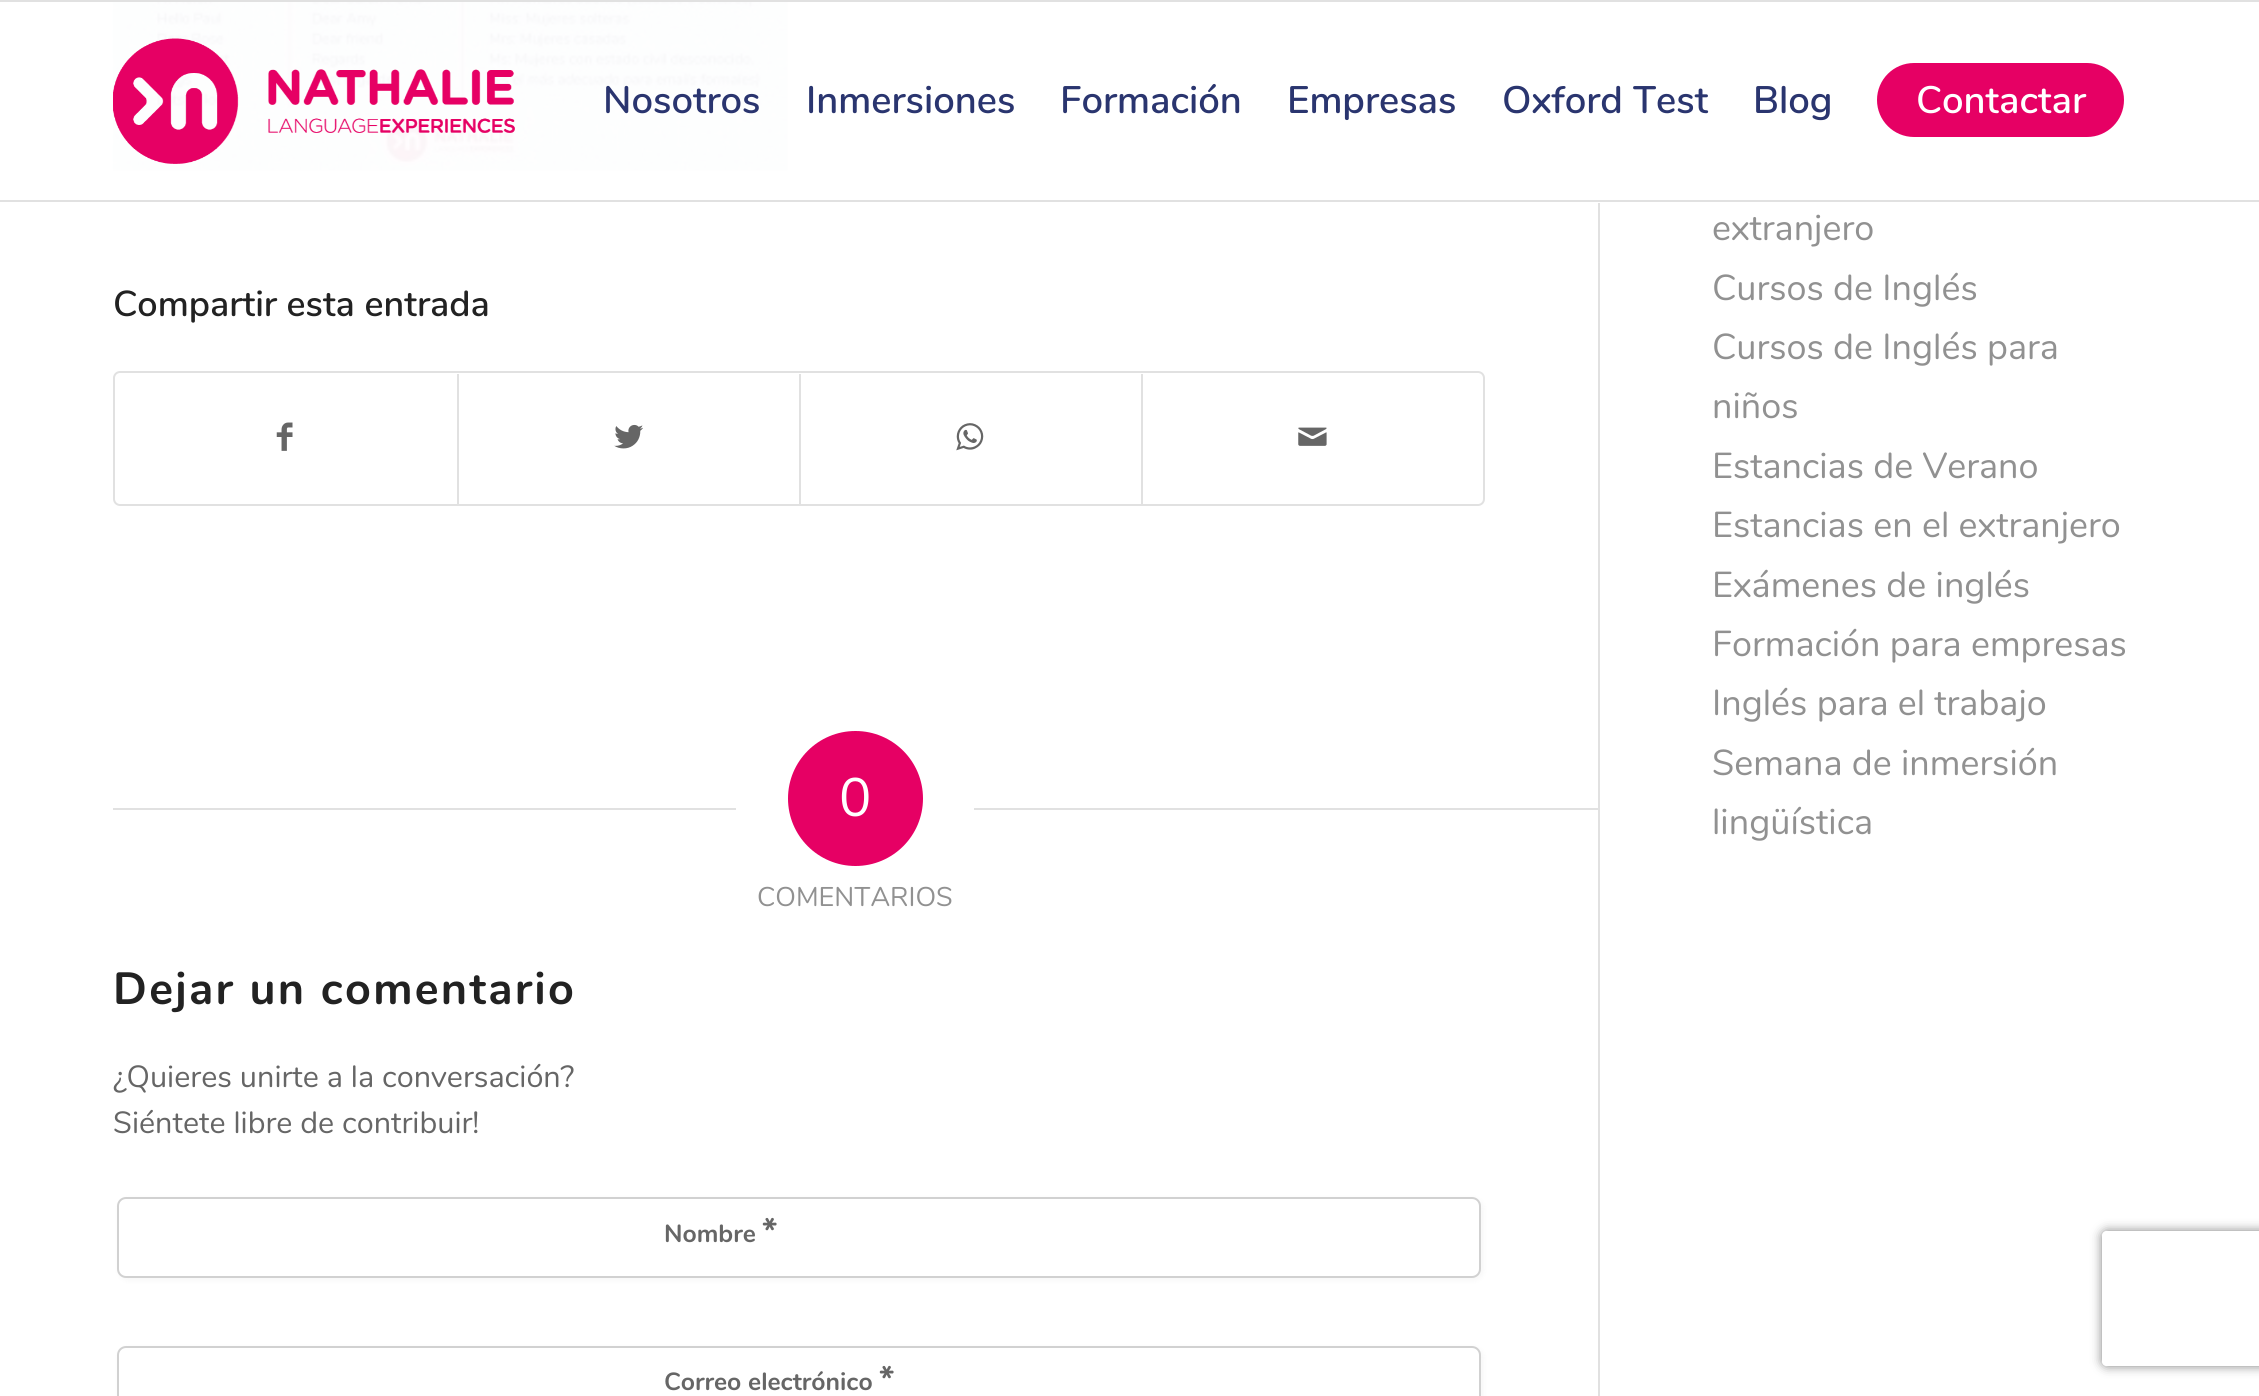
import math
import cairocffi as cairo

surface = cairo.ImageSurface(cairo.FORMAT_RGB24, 2259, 1396)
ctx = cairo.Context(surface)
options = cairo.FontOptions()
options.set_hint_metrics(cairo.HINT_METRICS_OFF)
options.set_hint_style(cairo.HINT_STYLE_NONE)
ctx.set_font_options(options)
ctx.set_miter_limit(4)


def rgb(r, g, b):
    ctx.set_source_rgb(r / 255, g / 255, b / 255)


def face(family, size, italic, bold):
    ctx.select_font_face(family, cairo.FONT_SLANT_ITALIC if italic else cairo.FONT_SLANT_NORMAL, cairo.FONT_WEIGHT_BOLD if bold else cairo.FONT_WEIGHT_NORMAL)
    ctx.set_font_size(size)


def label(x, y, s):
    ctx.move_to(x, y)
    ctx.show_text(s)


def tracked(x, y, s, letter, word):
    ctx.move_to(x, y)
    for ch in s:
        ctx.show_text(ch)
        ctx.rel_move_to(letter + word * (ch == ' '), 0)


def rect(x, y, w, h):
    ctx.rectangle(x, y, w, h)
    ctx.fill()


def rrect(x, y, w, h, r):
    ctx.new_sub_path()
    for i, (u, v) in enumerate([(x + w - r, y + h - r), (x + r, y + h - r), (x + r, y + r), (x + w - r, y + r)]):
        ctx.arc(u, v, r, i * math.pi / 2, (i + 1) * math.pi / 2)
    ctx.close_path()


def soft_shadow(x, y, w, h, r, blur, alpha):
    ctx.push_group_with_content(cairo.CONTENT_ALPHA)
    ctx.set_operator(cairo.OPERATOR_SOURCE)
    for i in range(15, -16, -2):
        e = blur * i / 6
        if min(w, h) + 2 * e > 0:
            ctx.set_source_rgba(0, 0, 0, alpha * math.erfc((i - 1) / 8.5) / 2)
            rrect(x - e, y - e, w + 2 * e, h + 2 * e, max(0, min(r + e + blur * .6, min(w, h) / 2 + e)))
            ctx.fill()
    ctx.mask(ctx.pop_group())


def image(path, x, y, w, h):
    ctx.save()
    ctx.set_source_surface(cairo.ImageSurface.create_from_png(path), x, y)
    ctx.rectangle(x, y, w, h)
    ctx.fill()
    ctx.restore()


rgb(255, 255, 255)
ctx.paint()
rgb(225, 225, 225)
rect(0, 0, 2259, 2)
rect(0, 200, 2259, 2)
image('image1.png', 112, 2, 676, 169)
image('image0.png', 113, 38, 402, 126)
face('Nunito SemiBold', 38.25, 0, 0)
rgb(42, 53, 111)
label(603, 113, 'Nosotros')
label(806, 113, 'Inmersiones')
label(1060, 113, 'Formación')
label(1287, 113, 'Empresas')
label(1502, 113, 'Oxford Test')
label(1753, 113, 'Blog')
rgb(230, 0, 100)
rrect(1879.5, 65.5, 242, 69, 34.5)
ctx.fill_preserve()
ctx.set_line_width(5)
ctx.stroke()
rgb(255, 255, 255)
label(1916, 113, 'Contactar')
rgb(225, 225, 225)
rect(1598, 203, 2, 1193)
face('Nunito SemiBold', 36, 0, 0)
rgb(34, 34, 34)
label(113, 316, 'Compartir esta entrada')
rrect(114, 372, 1370, 133, 6)
rgb(225, 225, 225)
ctx.set_line_width(2)
ctx.stroke()
image('image2.png', 276, 422, 17, 29)
rect(457, 374, 2, 130)
image('image3.png', 614, 424, 29, 25)
rect(799, 374, 2, 130)
image('image4.png', 956, 423, 28, 28)
rect(1141, 374, 2, 130)
image('image5.png', 1298, 427, 29, 19)
rect(113, 808, 623, 2)
rgb(230, 0, 100)
ctx.arc(855.5, 798.5, 67.5, 0, 2 * math.pi)
ctx.fill()
face('Nunito', 54, 0, 0)
rgb(255, 255, 255)
label(839, 816, '0')
rgb(225, 225, 225)
rect(974, 808, 624, 2)
face('Nunito', 27, 0, 0)
rgb(145, 145, 145)
label(757, 906, 'COMENTARIOS')
face('Nunito', 45, 0, 1)
rgb(34, 34, 34)
tracked(113, 1004, 'Dejar un comentario', 2.25, 0)
face('Nunito', 30.6, 0, 0)
rgb(102, 102, 102)
label(113, 1087, '¿Quieres unirte a la conversación?')
label(113, 1133, 'Siéntete libre de contribuir!')
rgb(0, 0, 0)
soft_shadow(119, 1199, 1364, 81, 9, 3.5, 0.04)
rgb(255, 255, 255)
rrect(118, 1198, 1362, 79, 8)
ctx.fill_preserve()
rgb(209, 209, 209)
ctx.stroke()
face('Nunito', 24.75, 0, 1)
rgb(102, 102, 102)
label(664, 1242, 'Nombre')
face('Nunito', 34, 0, 1)
label(762, 1242, '*')
rgb(0, 0, 0)
soft_shadow(119, 1348, 1364, 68, 9, 3.5, 0.04)
rgb(255, 255, 255)
rrect(118, 1347, 1362, 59, 8)
ctx.fill_preserve()
rgb(209, 209, 209)
ctx.stroke()
face('Nunito', 24.75, 0, 1)
rgb(102, 102, 102)
label(664, 1390, 'Correo electrónico')
face('Nunito', 34, 0, 1)
label(879, 1390, '*')
face('Nunito', 36, 0, 0)
rgb(145, 145, 145)
label(1712, 240, 'extranjero')
label(1712, 300, 'Cursos de Inglés')
label(1712, 359, 'Cursos de Inglés para')
label(1712, 418, 'niños')
label(1712, 478, 'Estancias de Verano')
label(1712, 537, 'Estancias en el extranjero')
label(1712, 597, 'Exámenes de inglés')
label(1712, 656, 'Formación para empresas')
label(1712, 715, 'Inglés para el trabajo')
label(1712, 775, 'Semana de inmersión')
label(1712, 834, 'lingüística')
ctx.save()
ctx.set_fill_rule(cairo.FILL_RULE_EVEN_ODD)
ctx.new_path()
ctx.move_to(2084, 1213)
ctx.line_to(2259, 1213)
ctx.line_to(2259, 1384)
ctx.line_to(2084, 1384)
ctx.close_path()
ctx.move_to(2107, 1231)
ctx.line_to(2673, 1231)
ctx.curve_to(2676, 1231, 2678, 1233, 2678, 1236)
ctx.line_to(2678, 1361)
ctx.curve_to(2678, 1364, 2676, 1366, 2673, 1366)
ctx.line_to(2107, 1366)
ctx.curve_to(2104, 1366, 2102, 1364, 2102, 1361)
ctx.line_to(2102, 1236)
ctx.curve_to(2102, 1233, 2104, 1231, 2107, 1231)
ctx.close_path()
ctx.clip()
rgb(128, 128, 128)
soft_shadow(2102, 1231, 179, 135, 5, 5.5, 1)
ctx.restore()
surface.write_to_png('render.png')
